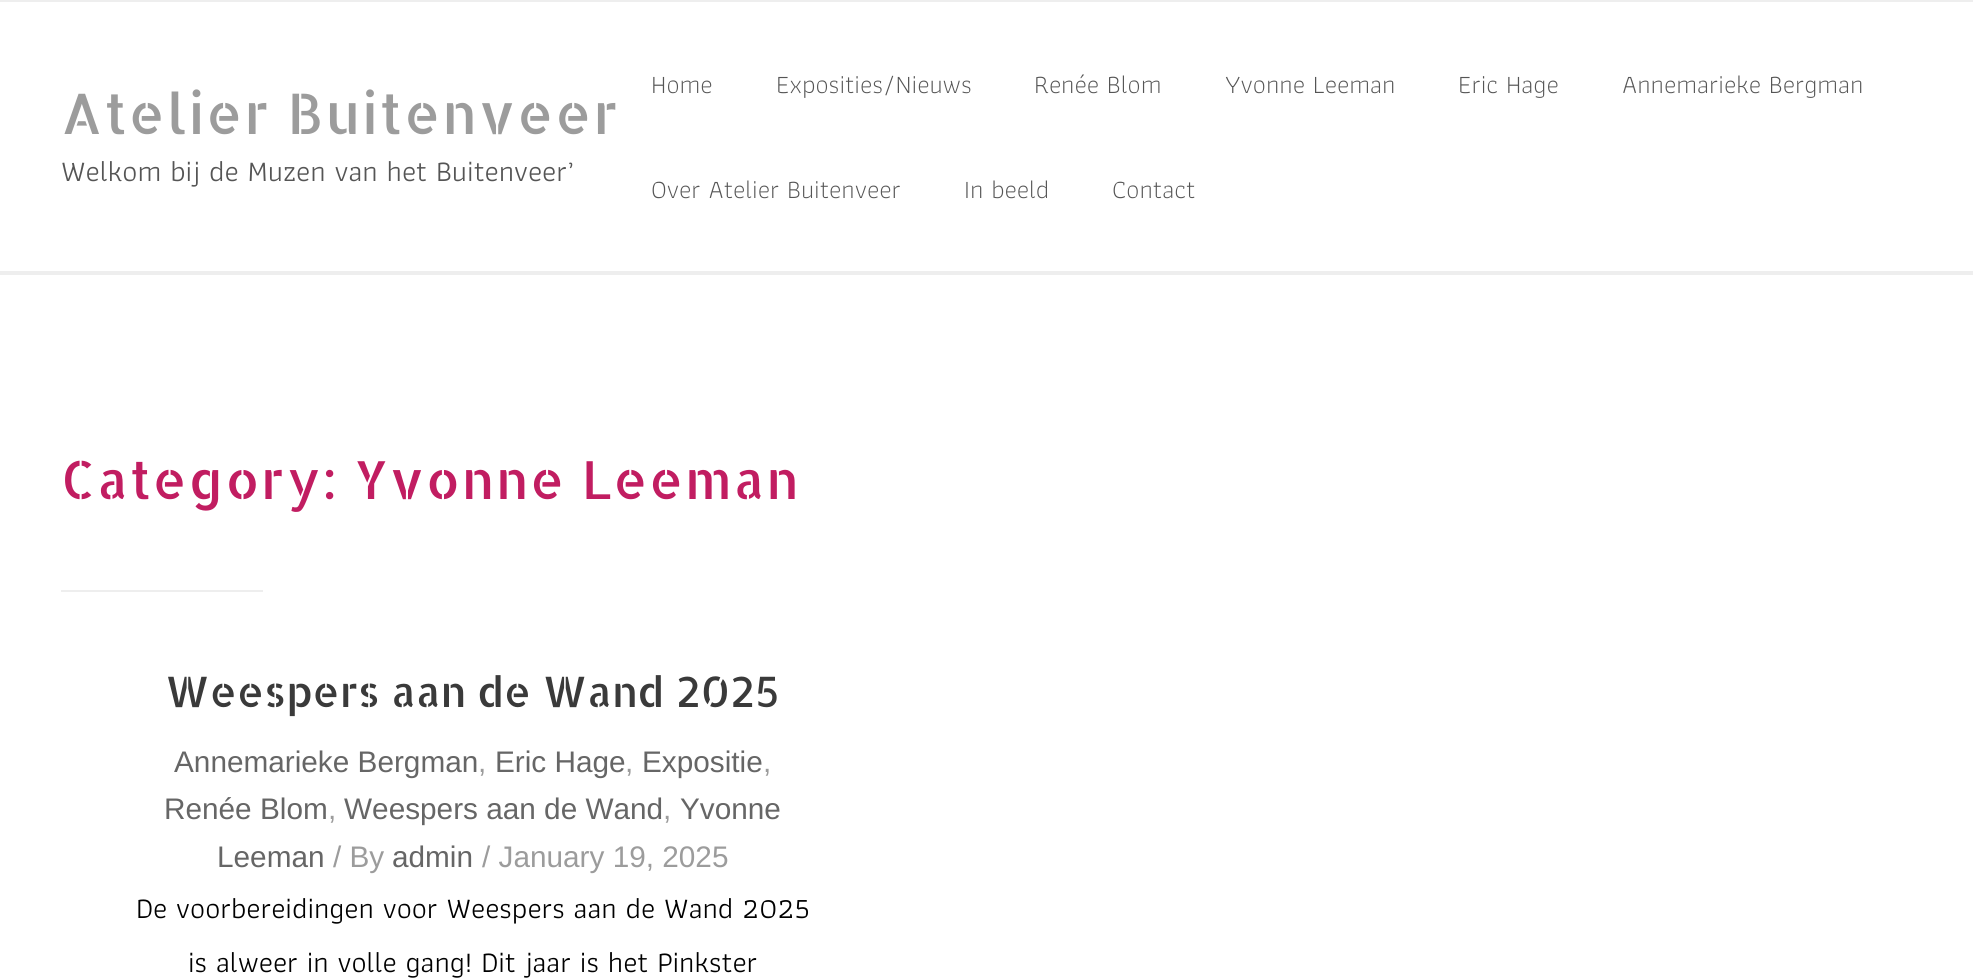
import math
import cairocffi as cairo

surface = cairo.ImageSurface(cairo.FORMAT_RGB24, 1973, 980)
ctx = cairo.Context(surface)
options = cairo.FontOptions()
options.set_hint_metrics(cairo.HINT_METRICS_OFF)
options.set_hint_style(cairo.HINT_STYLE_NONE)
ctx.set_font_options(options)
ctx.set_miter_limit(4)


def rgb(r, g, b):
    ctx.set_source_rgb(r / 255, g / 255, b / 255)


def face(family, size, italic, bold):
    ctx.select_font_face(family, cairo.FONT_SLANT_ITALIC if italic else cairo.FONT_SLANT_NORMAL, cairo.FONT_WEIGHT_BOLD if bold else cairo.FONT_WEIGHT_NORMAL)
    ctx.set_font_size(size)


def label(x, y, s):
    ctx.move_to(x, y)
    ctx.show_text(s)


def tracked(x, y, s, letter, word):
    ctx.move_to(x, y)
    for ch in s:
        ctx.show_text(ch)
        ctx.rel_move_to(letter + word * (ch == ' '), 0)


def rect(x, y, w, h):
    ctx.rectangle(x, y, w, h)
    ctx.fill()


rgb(255, 255, 255)
ctx.paint()
rgb(238, 238, 238)
rect(0, 0, 1973, 2)
face('Allerta Stencil', 56, 0, 0)
rgb(156, 156, 156)
tracked(61, 134, 'Atelier Buitenveer', 1.75, 0)
face('Athiti', 29.75, 0, 0)
rgb(85, 85, 85)
label(61, 181, 'Welkom bij de Muzen van het Buitenveer’')
face('Athiti Light', 26.25, 0, 0)
label(651, 93, 'Home')
label(776, 93, 'Exposities/Nieuws')
label(1034, 93, 'Renée Blom')
label(1225, 93, 'Yvonne Leeman')
label(1458, 93, 'Eric Hage')
label(1622, 93, 'Annemarieke Bergman')
label(651, 198, 'Over Atelier Buitenveer')
label(964, 198, 'In beeld')
label(1112, 198, 'Contact')
rgb(238, 238, 238)
rect(0, 271, 1973, 4)
face('Allerta Stencil', 52.5, 0, 0)
rgb(193, 29, 97)
tracked(61, 499, 'Category: Yvonne Leeman', 1.75, 0)
rgb(238, 238, 238)
rect(61, 590, 202, 2)
face('Allerta Stencil', 42, 0, 0)
rgb(58, 58, 58)
label(165, 707, 'Weespers aan de Wand 2025')
face('Liberation Sans', 29.75, 0, 0)
rgb(102, 102, 102)
label(174, 772, 'Annemarieke Bergman')
rgb(156, 156, 156)
label(478, 772, ',')
rgb(102, 102, 102)
label(495, 772, 'Eric Hage')
rgb(156, 156, 156)
label(625, 772, ',')
rgb(102, 102, 102)
label(642, 772, 'Expositie')
rgb(156, 156, 156)
label(763, 772, ',')
rgb(102, 102, 102)
label(164, 819, 'Renée Blom')
rgb(156, 156, 156)
label(328, 819, ',')
rgb(102, 102, 102)
label(344, 819, 'Weespers aan de Wand')
rgb(156, 156, 156)
label(663, 819, ',')
rgb(102, 102, 102)
label(680, 819, 'Yvonne')
label(217, 867, 'Leeman')
rgb(156, 156, 156)
label(333, 867, '/ By')
rgb(102, 102, 102)
label(392, 867, 'admin')
rgb(156, 156, 156)
label(482, 867, '/ January 19, 2025')
face('Athiti', 29.75, 0, 0)
rgb(0, 0, 0)
label(136, 918, 'De voorbereidingen voor Weespers aan de Wand 2025')
label(188, 972, 'is alweer in volle gang! Dit jaar is het Pinkster')
surface.write_to_png('render.png')
